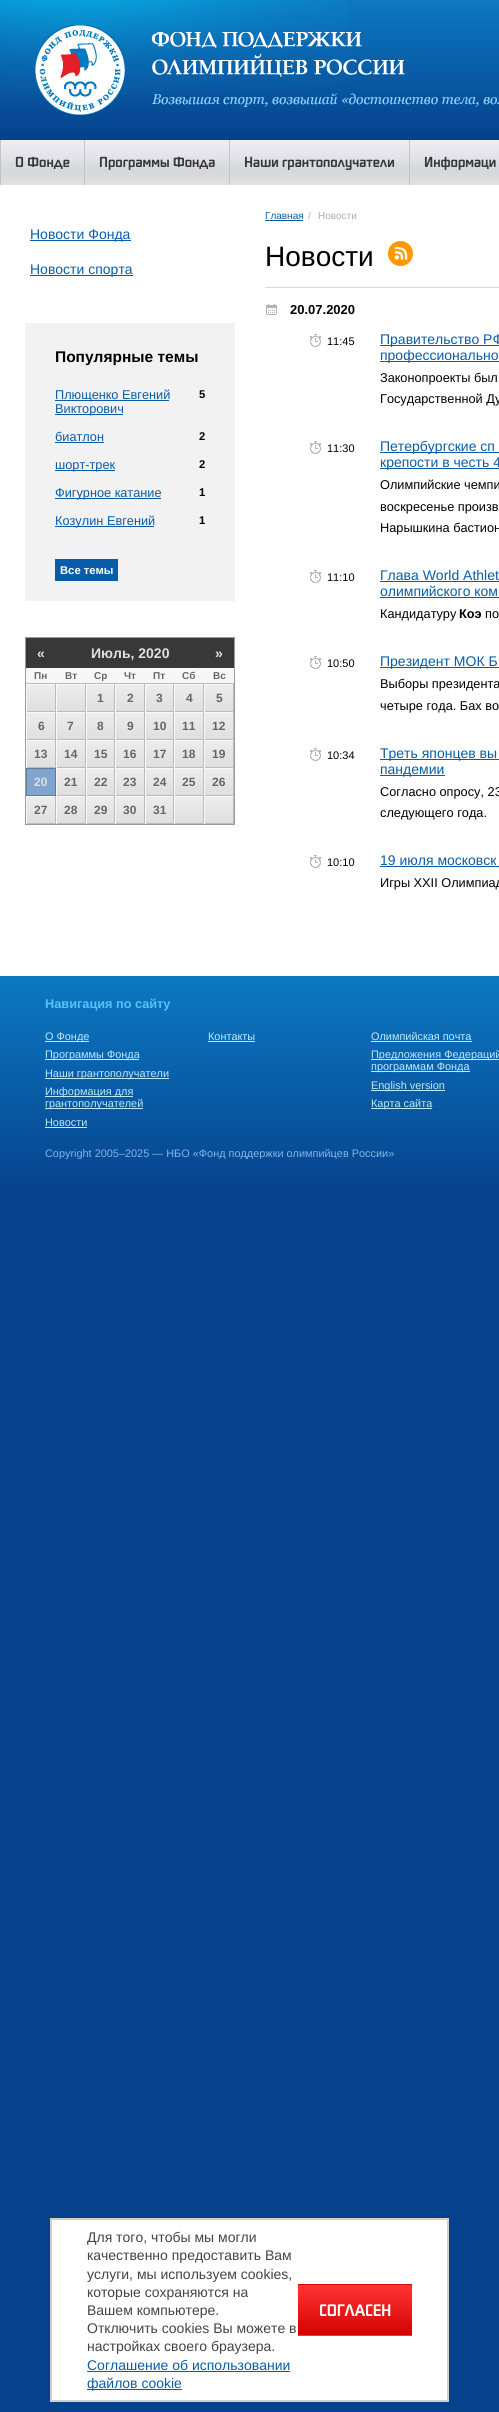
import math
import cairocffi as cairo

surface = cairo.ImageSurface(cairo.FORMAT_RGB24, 499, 2412)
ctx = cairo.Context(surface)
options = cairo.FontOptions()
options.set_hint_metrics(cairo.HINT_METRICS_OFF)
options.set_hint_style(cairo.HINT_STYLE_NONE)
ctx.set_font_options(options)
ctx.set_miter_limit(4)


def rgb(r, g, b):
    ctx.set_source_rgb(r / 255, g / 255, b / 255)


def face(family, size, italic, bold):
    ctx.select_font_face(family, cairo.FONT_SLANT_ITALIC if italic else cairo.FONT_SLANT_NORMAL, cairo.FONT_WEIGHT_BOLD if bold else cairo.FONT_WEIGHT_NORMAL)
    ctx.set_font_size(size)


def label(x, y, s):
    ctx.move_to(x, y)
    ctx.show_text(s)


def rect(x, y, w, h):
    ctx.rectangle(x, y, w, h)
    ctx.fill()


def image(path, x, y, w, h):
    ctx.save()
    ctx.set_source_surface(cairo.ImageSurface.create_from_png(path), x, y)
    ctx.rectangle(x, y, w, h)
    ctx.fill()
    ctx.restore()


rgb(6, 65, 140)
ctx.paint()
gradient = cairo.LinearGradient(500, 0, 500, 140)
gradient.add_color_stop_rgba(0, 0.047, 0.475, 0.761, 1)
gradient.add_color_stop_rgba(1, 0.024, 0.251, 0.549, 1)
ctx.set_source(gradient)
rect(0, 0, 499, 134)
image('image0.png', 0, 0, 348, 95)
image('image1.png', 35, 25, 90, 90)
image('image2.png', 151, 32, 348, 75)
gradient = cairo.LinearGradient(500, 140, 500, 185)
gradient.add_color_stop_rgba(0, 0.933, 0.933, 0.949, 1)
gradient.add_color_stop_rgba(0.31, 0.902, 0.894, 0.925, 1)
gradient.add_color_stop_rgba(0.47, 0.875, 0.878, 0.898, 1)
gradient.add_color_stop_rgba(0.53, 0.855, 0.859, 0.871, 1)
gradient.add_color_stop_rgba(0.59, 0.855, 0.859, 0.871, 1)
gradient.add_color_stop_rgba(0.63, 0.843, 0.847, 0.859, 1)
gradient.add_color_stop_rgba(0.65, 0.839, 0.843, 0.871, 1)
gradient.add_color_stop_rgba(0.71, 0.835, 0.843, 0.867, 1)
gradient.add_color_stop_rgba(0.8, 0.847, 0.855, 0.878, 1)
gradient.add_color_stop_rgba(0.82, 0.839, 0.859, 0.863, 1)
gradient.add_color_stop_rgba(0.94, 0.878, 0.878, 0.886, 1)
gradient.add_color_stop_rgba(1, 0.882, 0.894, 0.878, 1)
ctx.set_source(gradient)
rect(1, 140, 498, 45)
rgb(196, 196, 196)
rect(0, 140, 1, 45)
face('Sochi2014 Medium', 14, 0, 0)
rgb(56, 56, 56)
label(15, 167, 'О Фонде')
rgb(196, 196, 196)
rect(84, 140, 1, 45)
rgb(56, 56, 56)
label(99, 167, 'Программы Фонда')
rgb(196, 196, 196)
rect(229, 140, 1, 45)
rgb(56, 56, 56)
label(244, 167, 'Наши грантополучатели')
rgb(196, 196, 196)
rect(409, 140, 1, 45)
rgb(56, 56, 56)
label(424, 167, 'Информаци')
rgb(255, 255, 255)
rect(0, 185, 499, 791)
rgb(9, 93, 168)
rect(30, 240, 101, 1)
face('Liberation Sans', 14, 0, 0)
label(30, 239, 'Новости Фонда')
rect(30, 275, 103, 1)
label(30, 274, 'Новости спорта')
rgb(242, 242, 242)
rect(25, 323, 210, 278)
face('Liberation Sans', 15.5, 0, 1)
rgb(0, 0, 0)
label(55, 362, 'Популярные темы')
rgb(9, 93, 168)
rect(55, 400, 114, 1)
face('Liberation Sans', 12.75, 0, 0)
label(55, 399, 'Плющенко Евгений')
rect(55, 414, 68, 1)
label(55, 413, 'Викторович')
face('Liberation Sans', 11.25, 0, 1)
rgb(0, 0, 0)
label(199, 398, '5')
face('Liberation Sans', 12.75, 0, 0)
rgb(9, 93, 168)
label(55, 441, 'биатлон')
rect(55, 442, 49, 1)
face('Liberation Sans', 11.25, 0, 1)
rgb(0, 0, 0)
label(199, 440, '2')
rgb(9, 93, 168)
rect(55, 470, 60, 1)
face('Liberation Sans', 12.75, 0, 0)
label(55, 469, 'шорт-трек')
face('Liberation Sans', 11.25, 0, 1)
rgb(0, 0, 0)
label(199, 468, '2')
rgb(9, 93, 168)
rect(55, 498, 106, 1)
face('Liberation Sans', 12.75, 0, 0)
label(55, 497, 'Фигурное катание')
face('Liberation Sans', 11.25, 0, 1)
rgb(0, 0, 0)
label(199, 496, '1')
rgb(9, 93, 168)
rect(55, 526, 99, 1)
face('Liberation Sans', 12.75, 0, 0)
label(55, 525, 'Козулин Евгений')
face('Liberation Sans', 11.25, 0, 1)
rgb(0, 0, 0)
label(199, 524, '1')
rgb(9, 93, 168)
rect(55, 559, 63, 22)
rgb(255, 255, 255)
label(60, 574, 'Все темы')
ctx.rectangle(25.5, 637.5, 209, 187)
rgb(155, 155, 155)
ctx.set_line_width(1)
ctx.stroke()
rgb(56, 56, 56)
rect(26, 638, 208, 30)
face('Liberation Sans', 14, 0, 1)
rgb(224, 224, 224)
label(37, 658, '«')
label(91, 658, 'Июль, 2020')
label(215, 658, '»')
rgb(247, 247, 247)
rect(26, 668, 208, 15)
rgb(187, 187, 187)
rect(26, 683, 208, 1)
face('Liberation Sans', 10, 0, 1)
rgb(102, 102, 102)
label(34, 679, 'Пн')
label(65, 679, 'Вт')
label(94, 679, 'Ср')
label(124, 679, 'Чт')
label(153, 679, 'Пт')
label(182, 679, 'Сб')
label(213, 679, 'Вс')
gradient = cairo.LinearGradient(41, 685, 41, 711)
gradient.add_color_stop_rgba(0, 0.929, 0.929, 0.929, 1)
gradient.add_color_stop_rgba(1, 0.871, 0.871, 0.871, 1)
ctx.set_source(gradient)
rect(27, 685, 28, 26)
rgb(249, 249, 249)
rect(26, 684, 208, 1)
rgb(187, 187, 187)
rect(55, 684, 1, 28)
rect(26, 711, 30, 1)
rgb(249, 249, 249)
rect(26, 684, 1, 28)
gradient = cairo.LinearGradient(71, 685, 71, 711)
gradient.add_color_stop_rgba(0, 0.929, 0.929, 0.929, 1)
gradient.add_color_stop_rgba(1, 0.871, 0.871, 0.871, 1)
ctx.set_source(gradient)
rect(57, 685, 28, 26)
rgb(187, 187, 187)
rect(85, 684, 1, 28)
rect(56, 711, 30, 1)
rgb(249, 249, 249)
rect(56, 684, 1, 28)
gradient = cairo.LinearGradient(101, 685, 101, 711)
gradient.add_color_stop_rgba(0, 0.929, 0.929, 0.929, 1)
gradient.add_color_stop_rgba(1, 0.871, 0.871, 0.871, 1)
ctx.set_source(gradient)
rect(87, 685, 27, 26)
rgb(187, 187, 187)
rect(114, 684, 1, 28)
rect(86, 711, 29, 1)
rgb(249, 249, 249)
rect(86, 684, 1, 28)
face('Liberation Sans', 12, 0, 1)
rgb(102, 102, 102)
label(97, 702, '1')
gradient = cairo.LinearGradient(130, 685, 130, 711)
gradient.add_color_stop_rgba(0, 0.929, 0.929, 0.929, 1)
gradient.add_color_stop_rgba(1, 0.871, 0.871, 0.871, 1)
ctx.set_source(gradient)
rect(116, 685, 28, 26)
rgb(187, 187, 187)
rect(144, 684, 1, 28)
rect(115, 711, 30, 1)
rgb(249, 249, 249)
rect(115, 684, 1, 28)
rgb(102, 102, 102)
label(127, 702, '2')
gradient = cairo.LinearGradient(160, 685, 160, 711)
gradient.add_color_stop_rgba(0, 0.929, 0.929, 0.929, 1)
gradient.add_color_stop_rgba(1, 0.871, 0.871, 0.871, 1)
ctx.set_source(gradient)
rect(146, 685, 27, 26)
rgb(187, 187, 187)
rect(173, 684, 1, 28)
rect(145, 711, 29, 1)
rgb(249, 249, 249)
rect(145, 684, 1, 28)
rgb(102, 102, 102)
label(156, 702, '3')
gradient = cairo.LinearGradient(189, 685, 189, 711)
gradient.add_color_stop_rgba(0, 0.929, 0.929, 0.929, 1)
gradient.add_color_stop_rgba(1, 0.871, 0.871, 0.871, 1)
ctx.set_source(gradient)
rect(175, 685, 28, 26)
rgb(187, 187, 187)
rect(203, 684, 1, 28)
rect(174, 711, 30, 1)
rgb(249, 249, 249)
rect(174, 684, 1, 28)
rgb(102, 102, 102)
label(186, 702, '4')
gradient = cairo.LinearGradient(219, 685, 219, 711)
gradient.add_color_stop_rgba(0, 0.929, 0.929, 0.929, 1)
gradient.add_color_stop_rgba(1, 0.871, 0.871, 0.871, 1)
ctx.set_source(gradient)
rect(205, 685, 28, 26)
rgb(187, 187, 187)
rect(233, 684, 1, 28)
rect(204, 711, 30, 1)
rgb(249, 249, 249)
rect(204, 684, 1, 28)
rgb(102, 102, 102)
label(216, 702, '5')
gradient = cairo.LinearGradient(41, 713, 41, 739)
gradient.add_color_stop_rgba(0, 0.929, 0.929, 0.929, 1)
gradient.add_color_stop_rgba(1, 0.871, 0.871, 0.871, 1)
ctx.set_source(gradient)
rect(27, 713, 28, 26)
rgb(249, 249, 249)
rect(26, 712, 208, 1)
rgb(187, 187, 187)
rect(55, 712, 1, 28)
rect(26, 739, 30, 1)
rgb(249, 249, 249)
rect(26, 712, 1, 28)
rgb(102, 102, 102)
label(38, 730, '6')
gradient = cairo.LinearGradient(71, 713, 71, 739)
gradient.add_color_stop_rgba(0, 0.929, 0.929, 0.929, 1)
gradient.add_color_stop_rgba(1, 0.871, 0.871, 0.871, 1)
ctx.set_source(gradient)
rect(57, 713, 28, 26)
rgb(187, 187, 187)
rect(85, 712, 1, 28)
rect(56, 739, 30, 1)
rgb(249, 249, 249)
rect(56, 712, 1, 28)
rgb(102, 102, 102)
label(67, 730, '7')
gradient = cairo.LinearGradient(101, 713, 101, 739)
gradient.add_color_stop_rgba(0, 0.929, 0.929, 0.929, 1)
gradient.add_color_stop_rgba(1, 0.871, 0.871, 0.871, 1)
ctx.set_source(gradient)
rect(87, 713, 27, 26)
rgb(187, 187, 187)
rect(114, 712, 1, 28)
rect(86, 739, 29, 1)
rgb(249, 249, 249)
rect(86, 712, 1, 28)
rgb(102, 102, 102)
label(97, 730, '8')
gradient = cairo.LinearGradient(130, 713, 130, 739)
gradient.add_color_stop_rgba(0, 0.929, 0.929, 0.929, 1)
gradient.add_color_stop_rgba(1, 0.871, 0.871, 0.871, 1)
ctx.set_source(gradient)
rect(116, 713, 28, 26)
rgb(187, 187, 187)
rect(144, 712, 1, 28)
rect(115, 739, 30, 1)
rgb(249, 249, 249)
rect(115, 712, 1, 28)
rgb(102, 102, 102)
label(127, 730, '9')
gradient = cairo.LinearGradient(160, 713, 160, 739)
gradient.add_color_stop_rgba(0, 0.929, 0.929, 0.929, 1)
gradient.add_color_stop_rgba(1, 0.871, 0.871, 0.871, 1)
ctx.set_source(gradient)
rect(146, 713, 27, 26)
rgb(187, 187, 187)
rect(173, 712, 1, 28)
rect(145, 739, 29, 1)
rgb(249, 249, 249)
rect(145, 712, 1, 28)
rgb(102, 102, 102)
label(153, 730, '10')
gradient = cairo.LinearGradient(189, 713, 189, 739)
gradient.add_color_stop_rgba(0, 0.929, 0.929, 0.929, 1)
gradient.add_color_stop_rgba(1, 0.871, 0.871, 0.871, 1)
ctx.set_source(gradient)
rect(175, 713, 28, 26)
rgb(187, 187, 187)
rect(203, 712, 1, 28)
rect(174, 739, 30, 1)
rgb(249, 249, 249)
rect(174, 712, 1, 28)
rgb(102, 102, 102)
label(182, 730, '11')
gradient = cairo.LinearGradient(219, 713, 219, 739)
gradient.add_color_stop_rgba(0, 0.929, 0.929, 0.929, 1)
gradient.add_color_stop_rgba(1, 0.871, 0.871, 0.871, 1)
ctx.set_source(gradient)
rect(205, 713, 28, 26)
rgb(187, 187, 187)
rect(233, 712, 1, 28)
rect(204, 739, 30, 1)
rgb(249, 249, 249)
rect(204, 712, 1, 28)
rgb(102, 102, 102)
label(212, 730, '12')
gradient = cairo.LinearGradient(41, 741, 41, 767)
gradient.add_color_stop_rgba(0, 0.929, 0.929, 0.929, 1)
gradient.add_color_stop_rgba(1, 0.871, 0.871, 0.871, 1)
ctx.set_source(gradient)
rect(27, 741, 28, 26)
rgb(249, 249, 249)
rect(26, 740, 208, 1)
rgb(187, 187, 187)
rect(55, 740, 1, 28)
rect(26, 767, 30, 1)
rgb(249, 249, 249)
rect(26, 740, 1, 28)
rgb(102, 102, 102)
label(34, 758, '13')
gradient = cairo.LinearGradient(71, 741, 71, 767)
gradient.add_color_stop_rgba(0, 0.929, 0.929, 0.929, 1)
gradient.add_color_stop_rgba(1, 0.871, 0.871, 0.871, 1)
ctx.set_source(gradient)
rect(57, 741, 28, 26)
rgb(187, 187, 187)
rect(85, 740, 1, 28)
rect(56, 767, 30, 1)
rgb(249, 249, 249)
rect(56, 740, 1, 28)
rgb(102, 102, 102)
label(64, 758, '14')
gradient = cairo.LinearGradient(101, 741, 101, 767)
gradient.add_color_stop_rgba(0, 0.929, 0.929, 0.929, 1)
gradient.add_color_stop_rgba(1, 0.871, 0.871, 0.871, 1)
ctx.set_source(gradient)
rect(87, 741, 27, 26)
rgb(187, 187, 187)
rect(114, 740, 1, 28)
rect(86, 767, 29, 1)
rgb(249, 249, 249)
rect(86, 740, 1, 28)
rgb(102, 102, 102)
label(94, 758, '15')
gradient = cairo.LinearGradient(130, 741, 130, 767)
gradient.add_color_stop_rgba(0, 0.929, 0.929, 0.929, 1)
gradient.add_color_stop_rgba(1, 0.871, 0.871, 0.871, 1)
ctx.set_source(gradient)
rect(116, 741, 28, 26)
rgb(187, 187, 187)
rect(144, 740, 1, 28)
rect(115, 767, 30, 1)
rgb(249, 249, 249)
rect(115, 740, 1, 28)
rgb(102, 102, 102)
label(123, 758, '16')
gradient = cairo.LinearGradient(160, 741, 160, 767)
gradient.add_color_stop_rgba(0, 0.929, 0.929, 0.929, 1)
gradient.add_color_stop_rgba(1, 0.871, 0.871, 0.871, 1)
ctx.set_source(gradient)
rect(146, 741, 27, 26)
rgb(187, 187, 187)
rect(173, 740, 1, 28)
rect(145, 767, 29, 1)
rgb(249, 249, 249)
rect(145, 740, 1, 28)
rgb(102, 102, 102)
label(153, 758, '17')
gradient = cairo.LinearGradient(189, 741, 189, 767)
gradient.add_color_stop_rgba(0, 0.929, 0.929, 0.929, 1)
gradient.add_color_stop_rgba(1, 0.871, 0.871, 0.871, 1)
ctx.set_source(gradient)
rect(175, 741, 28, 26)
rgb(187, 187, 187)
rect(203, 740, 1, 28)
rect(174, 767, 30, 1)
rgb(249, 249, 249)
rect(174, 740, 1, 28)
rgb(102, 102, 102)
label(182, 758, '18')
gradient = cairo.LinearGradient(219, 741, 219, 767)
gradient.add_color_stop_rgba(0, 0.929, 0.929, 0.929, 1)
gradient.add_color_stop_rgba(1, 0.871, 0.871, 0.871, 1)
ctx.set_source(gradient)
rect(205, 741, 28, 26)
rgb(187, 187, 187)
rect(233, 740, 1, 28)
rect(204, 767, 30, 1)
rgb(249, 249, 249)
rect(204, 740, 1, 28)
rgb(102, 102, 102)
label(212, 758, '19')
rgb(127, 164, 205)
ctx.rectangle(26.5, 768.5, 29, 27)
ctx.fill_preserve()
rgb(97, 124, 154)
ctx.stroke()
rgb(224, 224, 224)
label(34, 786, '20')
gradient = cairo.LinearGradient(71, 769, 71, 795)
gradient.add_color_stop_rgba(0, 0.929, 0.929, 0.929, 1)
gradient.add_color_stop_rgba(1, 0.871, 0.871, 0.871, 1)
ctx.set_source(gradient)
rect(57, 769, 28, 26)
rgb(249, 249, 249)
rect(56, 768, 178, 1)
rgb(187, 187, 187)
rect(85, 768, 1, 28)
rect(56, 795, 30, 1)
rgb(249, 249, 249)
rect(56, 768, 1, 28)
rgb(102, 102, 102)
label(64, 786, '21')
gradient = cairo.LinearGradient(101, 769, 101, 795)
gradient.add_color_stop_rgba(0, 0.929, 0.929, 0.929, 1)
gradient.add_color_stop_rgba(1, 0.871, 0.871, 0.871, 1)
ctx.set_source(gradient)
rect(87, 769, 27, 26)
rgb(187, 187, 187)
rect(114, 768, 1, 28)
rect(86, 795, 29, 1)
rgb(249, 249, 249)
rect(86, 768, 1, 28)
rgb(102, 102, 102)
label(94, 786, '22')
gradient = cairo.LinearGradient(130, 769, 130, 795)
gradient.add_color_stop_rgba(0, 0.929, 0.929, 0.929, 1)
gradient.add_color_stop_rgba(1, 0.871, 0.871, 0.871, 1)
ctx.set_source(gradient)
rect(116, 769, 28, 26)
rgb(187, 187, 187)
rect(144, 768, 1, 28)
rect(115, 795, 30, 1)
rgb(249, 249, 249)
rect(115, 768, 1, 28)
rgb(102, 102, 102)
label(123, 786, '23')
gradient = cairo.LinearGradient(160, 769, 160, 795)
gradient.add_color_stop_rgba(0, 0.929, 0.929, 0.929, 1)
gradient.add_color_stop_rgba(1, 0.871, 0.871, 0.871, 1)
ctx.set_source(gradient)
rect(146, 769, 27, 26)
rgb(187, 187, 187)
rect(173, 768, 1, 28)
rect(145, 795, 29, 1)
rgb(249, 249, 249)
rect(145, 768, 1, 28)
rgb(102, 102, 102)
label(153, 786, '24')
gradient = cairo.LinearGradient(189, 769, 189, 795)
gradient.add_color_stop_rgba(0, 0.929, 0.929, 0.929, 1)
gradient.add_color_stop_rgba(1, 0.871, 0.871, 0.871, 1)
ctx.set_source(gradient)
rect(175, 769, 28, 26)
rgb(187, 187, 187)
rect(203, 768, 1, 28)
rect(174, 795, 30, 1)
rgb(249, 249, 249)
rect(174, 768, 1, 28)
rgb(102, 102, 102)
label(182, 786, '25')
gradient = cairo.LinearGradient(219, 769, 219, 795)
gradient.add_color_stop_rgba(0, 0.929, 0.929, 0.929, 1)
gradient.add_color_stop_rgba(1, 0.871, 0.871, 0.871, 1)
ctx.set_source(gradient)
rect(205, 769, 28, 26)
rgb(187, 187, 187)
rect(233, 768, 1, 28)
rect(204, 795, 30, 1)
rgb(249, 249, 249)
rect(204, 768, 1, 28)
rgb(102, 102, 102)
label(212, 786, '26')
gradient = cairo.LinearGradient(41, 797, 41, 823)
gradient.add_color_stop_rgba(0, 0.929, 0.929, 0.929, 1)
gradient.add_color_stop_rgba(1, 0.871, 0.871, 0.871, 1)
ctx.set_source(gradient)
rect(27, 797, 28, 26)
rgb(249, 249, 249)
rect(26, 796, 208, 1)
rgb(187, 187, 187)
rect(55, 796, 1, 28)
rect(26, 823, 30, 1)
rgb(249, 249, 249)
rect(26, 796, 1, 28)
rgb(102, 102, 102)
label(34, 814, '27')
gradient = cairo.LinearGradient(71, 797, 71, 823)
gradient.add_color_stop_rgba(0, 0.929, 0.929, 0.929, 1)
gradient.add_color_stop_rgba(1, 0.871, 0.871, 0.871, 1)
ctx.set_source(gradient)
rect(57, 797, 28, 26)
rgb(187, 187, 187)
rect(85, 796, 1, 28)
rect(56, 823, 30, 1)
rgb(249, 249, 249)
rect(56, 796, 1, 28)
rgb(102, 102, 102)
label(64, 814, '28')
gradient = cairo.LinearGradient(101, 797, 101, 823)
gradient.add_color_stop_rgba(0, 0.929, 0.929, 0.929, 1)
gradient.add_color_stop_rgba(1, 0.871, 0.871, 0.871, 1)
ctx.set_source(gradient)
rect(87, 797, 27, 26)
rgb(187, 187, 187)
rect(114, 796, 1, 28)
rect(86, 823, 29, 1)
rgb(249, 249, 249)
rect(86, 796, 1, 28)
rgb(102, 102, 102)
label(94, 814, '29')
gradient = cairo.LinearGradient(130, 797, 130, 823)
gradient.add_color_stop_rgba(0, 0.929, 0.929, 0.929, 1)
gradient.add_color_stop_rgba(1, 0.871, 0.871, 0.871, 1)
ctx.set_source(gradient)
rect(116, 797, 28, 26)
rgb(187, 187, 187)
rect(144, 796, 1, 28)
rect(115, 823, 30, 1)
rgb(249, 249, 249)
rect(115, 796, 1, 28)
rgb(102, 102, 102)
label(123, 814, '30')
gradient = cairo.LinearGradient(160, 797, 160, 823)
gradient.add_color_stop_rgba(0, 0.929, 0.929, 0.929, 1)
gradient.add_color_stop_rgba(1, 0.871, 0.871, 0.871, 1)
ctx.set_source(gradient)
rect(146, 797, 27, 26)
rgb(187, 187, 187)
rect(173, 796, 1, 28)
rect(145, 823, 29, 1)
rgb(249, 249, 249)
rect(145, 796, 1, 28)
rgb(102, 102, 102)
label(153, 814, '31')
gradient = cairo.LinearGradient(189, 797, 189, 823)
gradient.add_color_stop_rgba(0, 0.929, 0.929, 0.929, 1)
gradient.add_color_stop_rgba(1, 0.871, 0.871, 0.871, 1)
ctx.set_source(gradient)
rect(175, 797, 28, 26)
rgb(187, 187, 187)
rect(203, 796, 1, 28)
rect(174, 823, 30, 1)
rgb(249, 249, 249)
rect(174, 796, 1, 28)
gradient = cairo.LinearGradient(219, 797, 219, 823)
gradient.add_color_stop_rgba(0, 0.929, 0.929, 0.929, 1)
gradient.add_color_stop_rgba(1, 0.871, 0.871, 0.871, 1)
ctx.set_source(gradient)
rect(205, 797, 28, 26)
rgb(187, 187, 187)
rect(233, 796, 1, 28)
rect(204, 823, 30, 1)
rgb(249, 249, 249)
rect(204, 796, 1, 28)
face('Liberation Sans', 10, 0, 0)
rgb(9, 93, 168)
label(265, 219, 'Главная')
rgb(9, 91, 166)
rect(265, 220, 38, 1)
rgb(173, 173, 173)
label(308, 219, '/')
label(318, 219, 'Новости')
face('Liberation Sans', 28, 0, 0)
rgb(0, 0, 0)
label(265, 266, 'Новости')
image('image3.png', 388, 241, 25, 25)
rgb(214, 214, 214)
rect(265, 287, 234, 1)
image('image4.png', 266, 304, 11, 11)
face('Liberation Sans', 13, 0, 1)
rgb(0, 0, 0)
label(290, 314, '20.07.2020')
image('image5.png', 310, 334, 11, 13)
face('Liberation Sans', 11, 0, 0)
label(327, 345, '11:45')
rgb(9, 93, 168)
rect(380, 345, 119, 1)
face('Liberation Sans', 14, 0, 0)
label(380, 344, 'Правительство РФ')
rect(380, 361, 119, 1)
label(380, 360, 'профессионально')
face('Liberation Sans', 12.75, 0, 0)
rgb(0, 0, 0)
label(380, 382, 'Законопроекты был')
label(380, 403, 'Государственной Ду')
image('image5.png', 310, 441, 11, 13)
face('Liberation Sans', 11, 0, 0)
label(327, 452, '11:30')
rgb(9, 93, 168)
rect(380, 452, 119, 1)
face('Liberation Sans', 14, 0, 0)
label(380, 451, 'Петербургские сп')
rect(380, 468, 119, 1)
label(380, 467, 'крепости в честь 4')
face('Liberation Sans', 12.75, 0, 0)
rgb(0, 0, 0)
label(380, 489, 'Олимпийские чемпи')
label(380, 511, 'воскресенье произв')
label(380, 532, 'Нарышкина бастион')
image('image5.png', 310, 570, 11, 13)
face('Liberation Sans', 11, 0, 0)
label(327, 581, '11:10')
face('Liberation Sans', 14, 0, 0)
rgb(9, 93, 168)
label(380, 580, 'Глава World Athlet')
rect(380, 581, 119, 1)
label(380, 596, 'олимпийского ком')
rect(380, 597, 119, 1)
face('Liberation Sans', 12.75, 0, 0)
rgb(0, 0, 0)
label(380, 618, 'Кандидатуру')
face('Liberation Sans', 12.75, 0, 1)
label(459, 618, 'Коэ')
face('Liberation Sans', 12.75, 0, 0)
label(485, 618, 'по')
image('image5.png', 310, 656, 11, 13)
face('Liberation Sans', 11, 0, 0)
label(327, 667, '10:50')
rgb(9, 93, 168)
rect(380, 667, 119, 1)
face('Liberation Sans', 14, 0, 0)
label(380, 666, 'Президент МОК Б')
face('Liberation Sans', 12.75, 0, 0)
rgb(0, 0, 0)
label(380, 688, 'Выборы президента')
label(380, 710, 'четыре года. Бах во')
image('image5.png', 310, 748, 11, 13)
face('Liberation Sans', 11, 0, 0)
label(327, 759, '10:34')
rgb(9, 93, 168)
rect(380, 759, 119, 1)
face('Liberation Sans', 14, 0, 0)
label(380, 758, 'Треть японцев вы')
rect(380, 775, 65, 1)
label(380, 774, 'пандемии')
face('Liberation Sans', 12.75, 0, 0)
rgb(0, 0, 0)
label(380, 796, 'Согласно опросу, 23')
label(380, 817, 'следующего года.')
image('image5.png', 310, 855, 11, 13)
face('Liberation Sans', 11, 0, 0)
label(327, 866, '10:10')
face('Liberation Sans', 14, 0, 0)
rgb(9, 93, 168)
label(380, 865, '19 июля московск')
rect(380, 866, 119, 1)
face('Liberation Sans', 12.75, 0, 0)
rgb(0, 0, 0)
label(380, 887, 'Игры XXII Олимпиад')
gradient = cairo.LinearGradient(250, 976, 250, 1200)
gradient.add_color_stop_rgba(0, 0.047, 0.475, 0.761, 1)
gradient.add_color_stop_rgba(1, 0.024, 0.251, 0.549, 1)
ctx.set_source(gradient)
rect(0, 976, 499, 214)
face('Liberation Sans', 12.75, 0, 1)
rgb(81, 196, 255)
label(45, 1008, 'Навигация по сайту')
rgb(189, 234, 255)
rect(45, 1041, 44, 1)
face('Liberation Sans', 10.9, 0, 0)
label(45, 1040, 'О Фонде')
rect(45, 1059, 94, 1)
label(45, 1058, 'Программы Фонда')
rect(45, 1078, 124, 1)
label(45, 1077, 'Наши грантополучатели')
rect(45, 1096, 88, 1)
label(45, 1095, 'Информация для')
rect(45, 1108, 98, 1)
label(45, 1107, 'грантополучателей')
label(45, 1126, 'Новости')
rect(45, 1127, 42, 1)
label(208, 1040, 'Контакты')
rect(208, 1041, 47, 1)
label(371, 1040, 'Олимпийская почта')
rect(371, 1041, 101, 1)
rect(371, 1059, 128, 1)
label(371, 1058, 'Предложения Федераций')
rect(371, 1071, 99, 1)
label(371, 1070, 'программам Фонда')
rect(371, 1090, 74, 1)
label(371, 1089, 'English version')
rect(371, 1108, 61, 1)
label(371, 1107, 'Карта сайта')
ctx.save()
ctx.rectangle(0, 996, 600, 163)
ctx.clip()
rgb(130, 181, 225)
label(45, 1157, 'Copyright 2005–2025 — НБО «Фонд поддержки олимпийцев России»')
ctx.restore()
rgb(255, 255, 255)
ctx.rectangle(51, 2219, 397, 182)
ctx.fill_preserve()
rgb(208, 206, 206)
ctx.set_line_width(2)
ctx.stroke()
face('Liberation Sans', 14, 0, 0)
rgb(68, 68, 68)
label(87, 2242, 'Для того, чтобы мы могли')
label(87, 2260, 'качественно предоставить Вам')
label(87, 2279, 'услуги, мы используем cookies,')
label(87, 2297, 'которые сохраняются на')
label(87, 2315, 'Вашем компьютере.')
label(87, 2333, 'Отключить cookies Вы можете в')
label(87, 2351, 'настройках своего браузера.')
rgb(9, 93, 168)
label(87, 2370, 'Соглашение об использовании')
rect(87, 2371, 203, 1)
rect(87, 2389, 95, 1)
label(87, 2388, 'файлов cookie')
gradient = cairo.LinearGradient(355, 2235, 355, 2285)
gradient.add_color_stop_rgba(0, 1, 0.204, 0.204, 1)
gradient.add_color_stop_rgba(1, 0.835, 0.004, 0.004, 1)
ctx.set_source(gradient)
rect(298, 2284, 114, 1)
gradient = cairo.LinearGradient(355, 2285, 355, 2335)
gradient.add_color_stop_rgba(0, 1, 0.204, 0.204, 1)
gradient.add_color_stop_rgba(1, 0.835, 0.004, 0.004, 1)
ctx.set_source(gradient)
rect(298, 2285, 114, 50)
gradient = cairo.LinearGradient(355, 2335, 355, 2385)
gradient.add_color_stop_rgba(0, 1, 0.204, 0.204, 1)
gradient.add_color_stop_rgba(1, 0.835, 0.004, 0.004, 1)
ctx.set_source(gradient)
rect(298, 2335, 114, 1)
face('Sochi2014 Medium', 16, 0, 0)
rgb(255, 255, 255)
label(319, 2316, 'СОГЛАСЕН')
surface.write_to_png('render.png')
